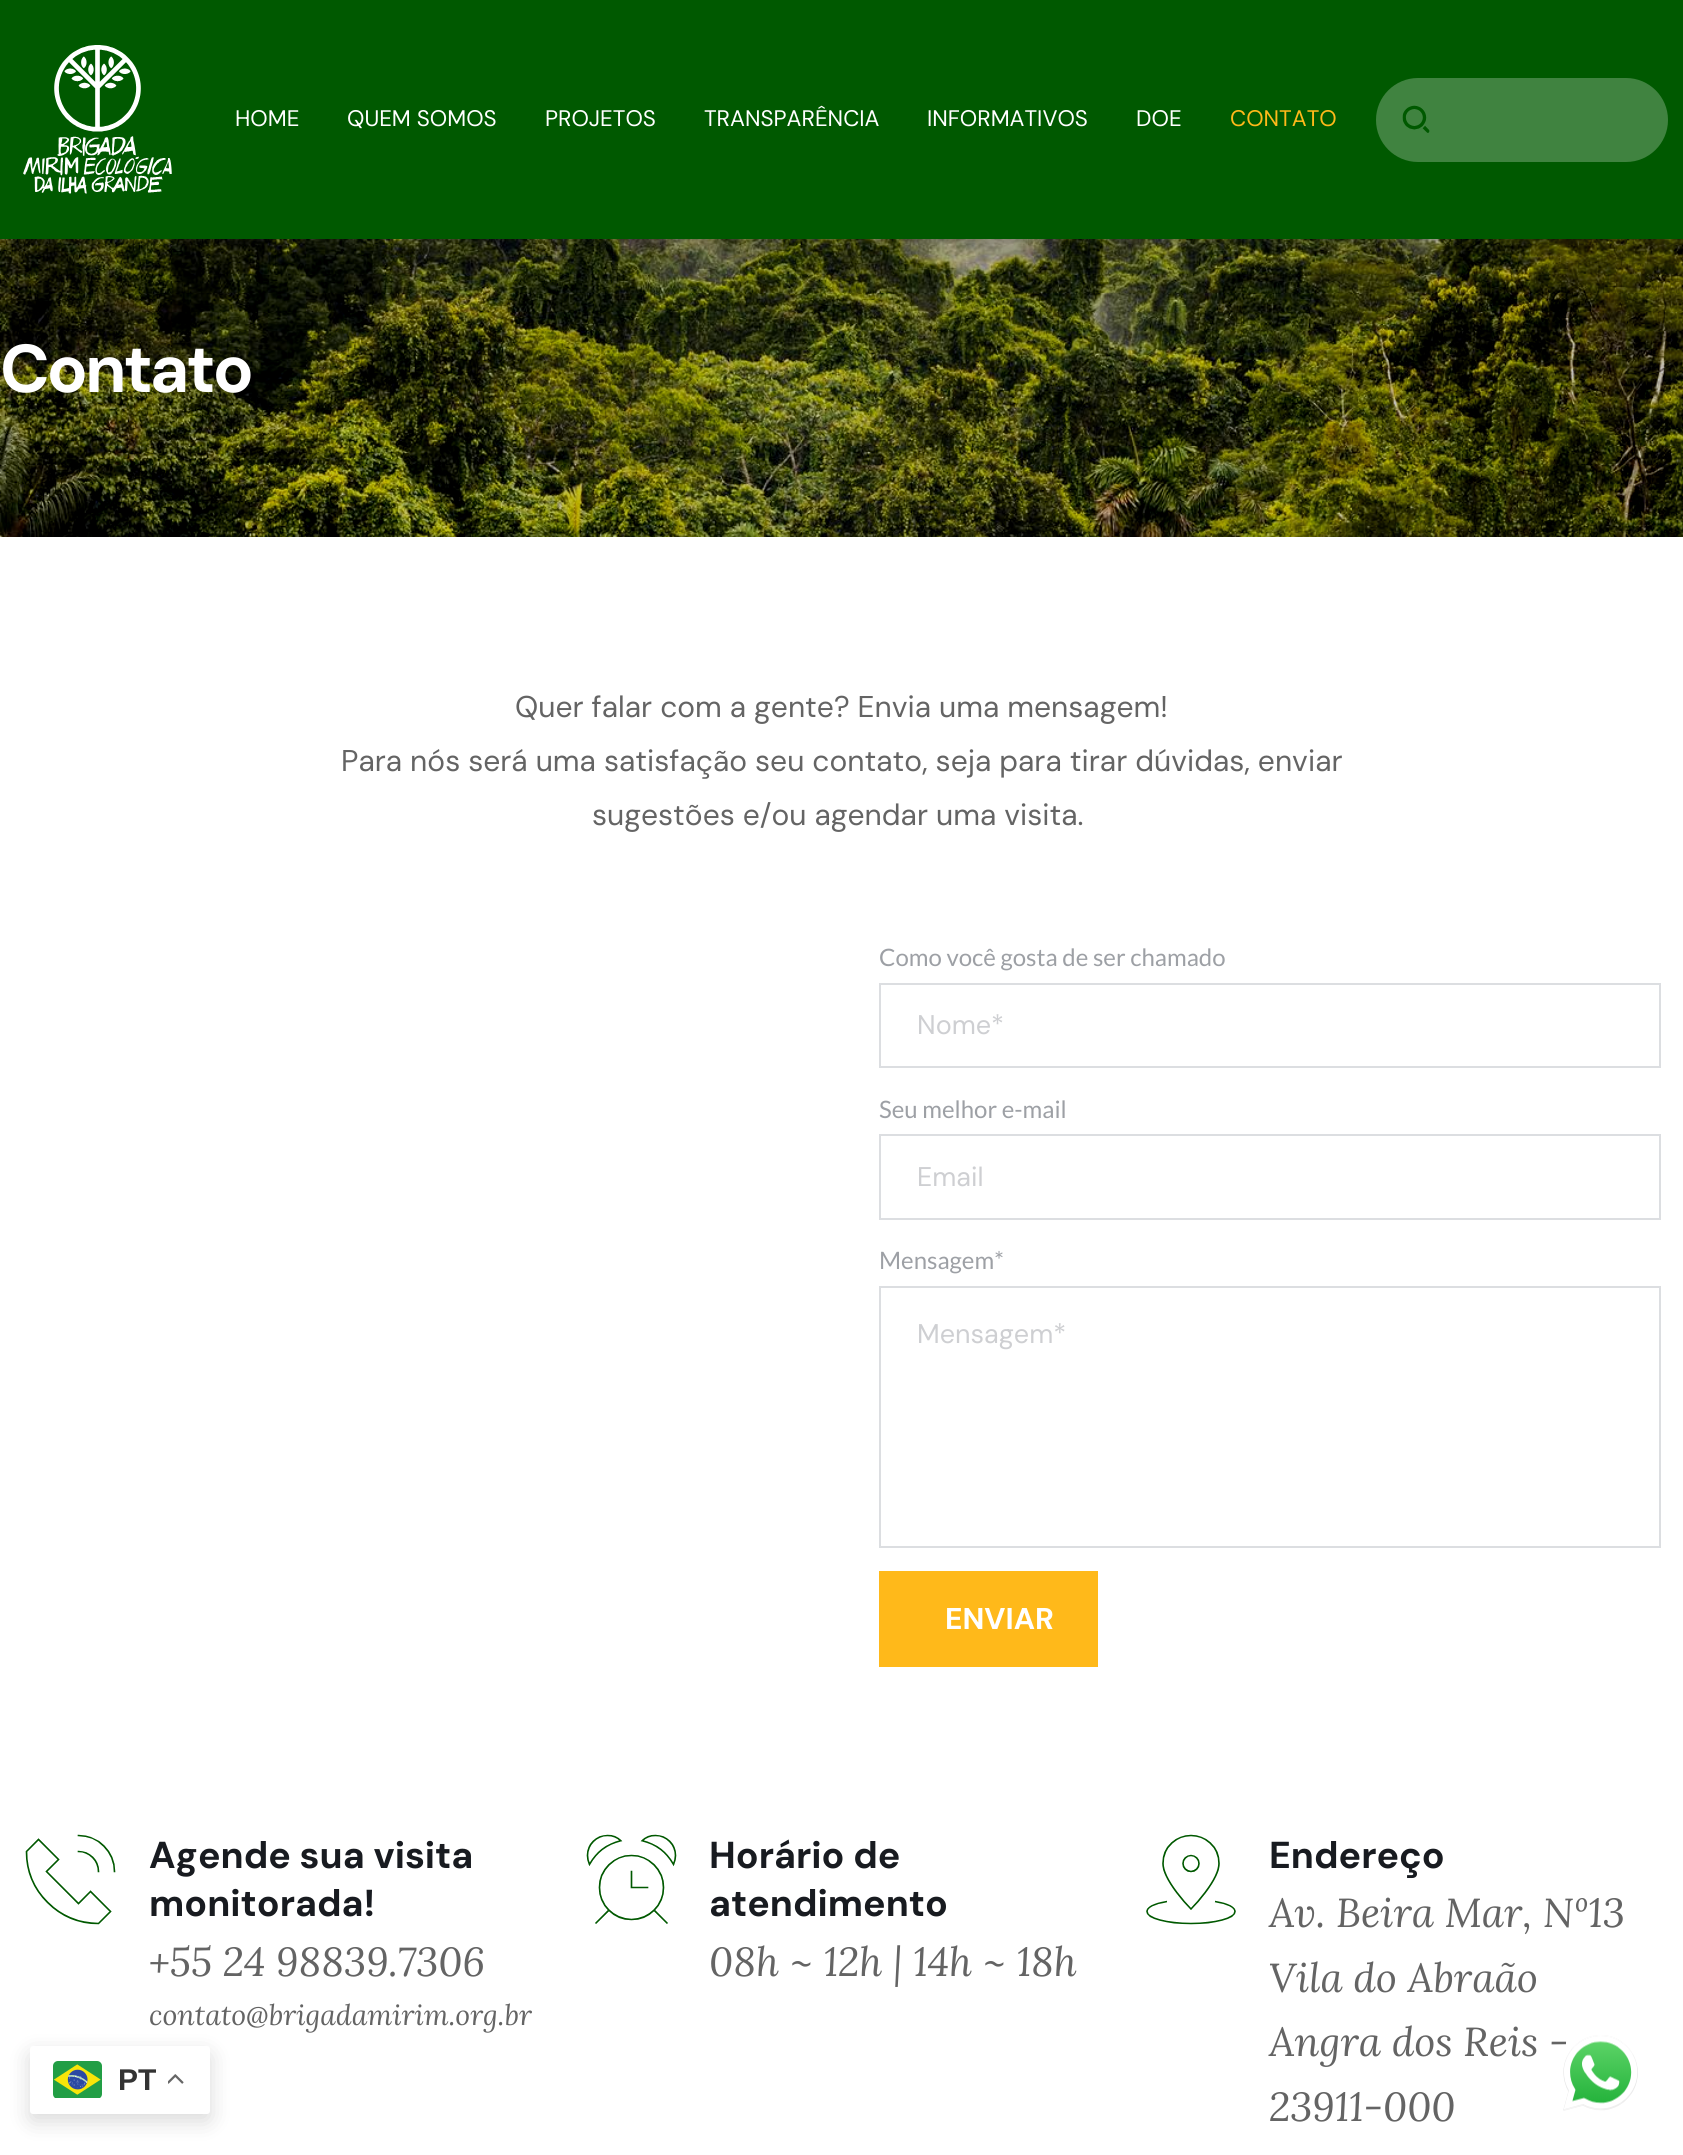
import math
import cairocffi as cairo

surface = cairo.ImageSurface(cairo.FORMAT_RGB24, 1683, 2155)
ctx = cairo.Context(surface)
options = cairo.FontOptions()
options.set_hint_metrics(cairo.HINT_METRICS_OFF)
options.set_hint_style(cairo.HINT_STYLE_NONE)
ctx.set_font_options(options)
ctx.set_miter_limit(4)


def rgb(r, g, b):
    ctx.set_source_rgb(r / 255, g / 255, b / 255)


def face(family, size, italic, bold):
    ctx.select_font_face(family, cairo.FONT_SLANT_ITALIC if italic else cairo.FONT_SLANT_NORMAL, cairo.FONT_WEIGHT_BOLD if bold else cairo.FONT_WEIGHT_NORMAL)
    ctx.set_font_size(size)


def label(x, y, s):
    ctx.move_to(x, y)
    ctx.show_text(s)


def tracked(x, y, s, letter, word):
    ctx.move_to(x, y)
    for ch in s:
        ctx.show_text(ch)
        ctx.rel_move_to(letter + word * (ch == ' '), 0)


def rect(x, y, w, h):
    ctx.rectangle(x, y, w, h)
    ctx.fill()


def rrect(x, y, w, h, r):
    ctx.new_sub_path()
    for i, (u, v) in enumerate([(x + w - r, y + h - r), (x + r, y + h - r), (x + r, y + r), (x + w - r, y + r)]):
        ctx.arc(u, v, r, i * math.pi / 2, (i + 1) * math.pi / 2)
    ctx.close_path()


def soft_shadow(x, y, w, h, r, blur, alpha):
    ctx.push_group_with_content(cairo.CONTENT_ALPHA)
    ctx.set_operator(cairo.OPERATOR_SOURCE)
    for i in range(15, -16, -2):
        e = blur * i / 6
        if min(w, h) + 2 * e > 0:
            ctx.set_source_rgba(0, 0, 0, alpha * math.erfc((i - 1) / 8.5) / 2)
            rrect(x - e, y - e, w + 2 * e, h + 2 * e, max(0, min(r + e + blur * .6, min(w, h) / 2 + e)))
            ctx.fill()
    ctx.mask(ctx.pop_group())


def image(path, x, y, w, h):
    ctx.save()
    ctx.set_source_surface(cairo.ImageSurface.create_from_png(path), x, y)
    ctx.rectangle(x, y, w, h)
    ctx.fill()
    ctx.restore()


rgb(255, 255, 255)
ctx.paint()
image('image2.png', 0, 239, 1683, 298)
rgb(24, 27, 32)
soft_shadow(0, 2, 1683, 238, 0, 5, 0.15)
rgb(0, 89, 0)
rect(0, 0, 1683, 239)
image('image0.png', 23, 45, 149, 149)
face('DM Sans', 22.5, 0, 0)
rgb(255, 255, 255)
label(235, 126, 'HOME')
label(347, 126, 'QUEM SOMOS')
label(545, 126, 'PROJETOS')
label(704, 126, 'TRANSPARÊNCIA')
label(927, 126, 'INFORMATIVOS')
label(1136, 126, 'DOE')
rgb(255, 185, 26)
label(1230, 126, 'CONTATO')
rgb(64, 131, 64)
rrect(1376, 78, 292, 84, 42)
ctx.fill()
image('image1.png', 1402, 105, 28, 28)
face('DM Sans', 67.5, 0, 1)
rgb(255, 255, 255)
tracked(0, 392, 'Contato', -3, 0)
face('DM Sans', 30, 0, 0)
rgb(100, 100, 100)
label(515, 717, 'Quer falar com a gente? Envia uma mensagem!')
label(341, 771, 'Para nós será uma satisfação seu contato, seja para tirar dúvidas, enviar')
label(592, 825, 'sugestões e/ou agendar uma visita.')
face('Lato', 24, 0, 0)
rgb(157, 160, 165)
label(879, 966, 'Como você gosta de ser chamado')
ctx.rectangle(880, 984, 780, 83)
rgb(220, 222, 225)
ctx.stroke()
face('DM Sans', 27, 0, 0)
rgb(206, 207, 210)
label(917, 1034, 'Nome*')
face('Lato', 24, 0, 0)
rgb(157, 160, 165)
label(879, 1118, 'Seu melhor e-mail')
ctx.rectangle(880, 1135, 780, 84)
rgb(220, 222, 225)
ctx.stroke()
face('DM Sans', 27, 0, 0)
rgb(206, 207, 210)
label(917, 1186, 'Email')
face('Lato', 24, 0, 0)
rgb(157, 160, 165)
label(879, 1269, 'Mensagem*')
ctx.rectangle(880, 1287, 780, 260)
rgb(220, 222, 225)
ctx.stroke()
face('DM Sans', 27, 0, 0)
rgb(206, 207, 210)
label(917, 1343, 'Mensagem*')
rgb(255, 185, 26)
rect(879, 1571, 219, 96)
face('DM Sans', 30, 0, 1)
rgb(255, 255, 255)
label(945, 1629, 'ENVIAR')
image('image3.png', 25, 1834, 91, 91)
face('DM Sans', 37.5, 0, 1)
rgb(24, 27, 32)
label(149, 1868, 'Agende sua visita')
label(149, 1916, 'monitorada!')
face('Lora', 40.5, 1, 0)
rgb(100, 100, 100)
label(149, 1976, '+55 24 98839.7306')
face('Lora', 28.5, 1, 0)
label(149, 2025, 'contato@brigadamirim.org.br')
image('image4.png', 586, 1834, 91, 90)
face('DM Sans', 37.5, 0, 1)
rgb(24, 27, 32)
label(709, 1868, 'Horário de')
label(709, 1916, 'atendimento')
face('Lora', 40.5, 1, 0)
rgb(100, 100, 100)
label(709, 1976, '08h ~ 12h | 14h ~ 18h')
image('image5.png', 1146, 1834, 90, 91)
face('DM Sans', 37.5, 0, 1)
rgb(24, 27, 32)
label(1269, 1868, 'Endereço')
face('Lora', 40.5, 1, 0)
rgb(100, 100, 100)
label(1269, 1927, 'Av. Beira Mar, Nº13')
label(1269, 1992, 'Vila do Abraão')
label(1269, 2056, 'Angra dos Reis -')
label(1269, 2121, '23911-000')
rgb(0, 0, 0)
soft_shadow(30, 2054, 180, 67, 3, 11, 0.15)
rgb(255, 255, 255)
rrect(30, 2046, 180, 68, 3)
ctx.fill()
image('image6.png', 53, 2061, 49, 37)
face('Liberation Sans', 30, 0, 1)
rgb(51, 51, 51)
label(118, 2090, 'PT')
image('image7.png', 168, 2074, 16, 10)
image('image8.png', 1563, 2035, 75, 76)
surface.write_to_png('render.png')
